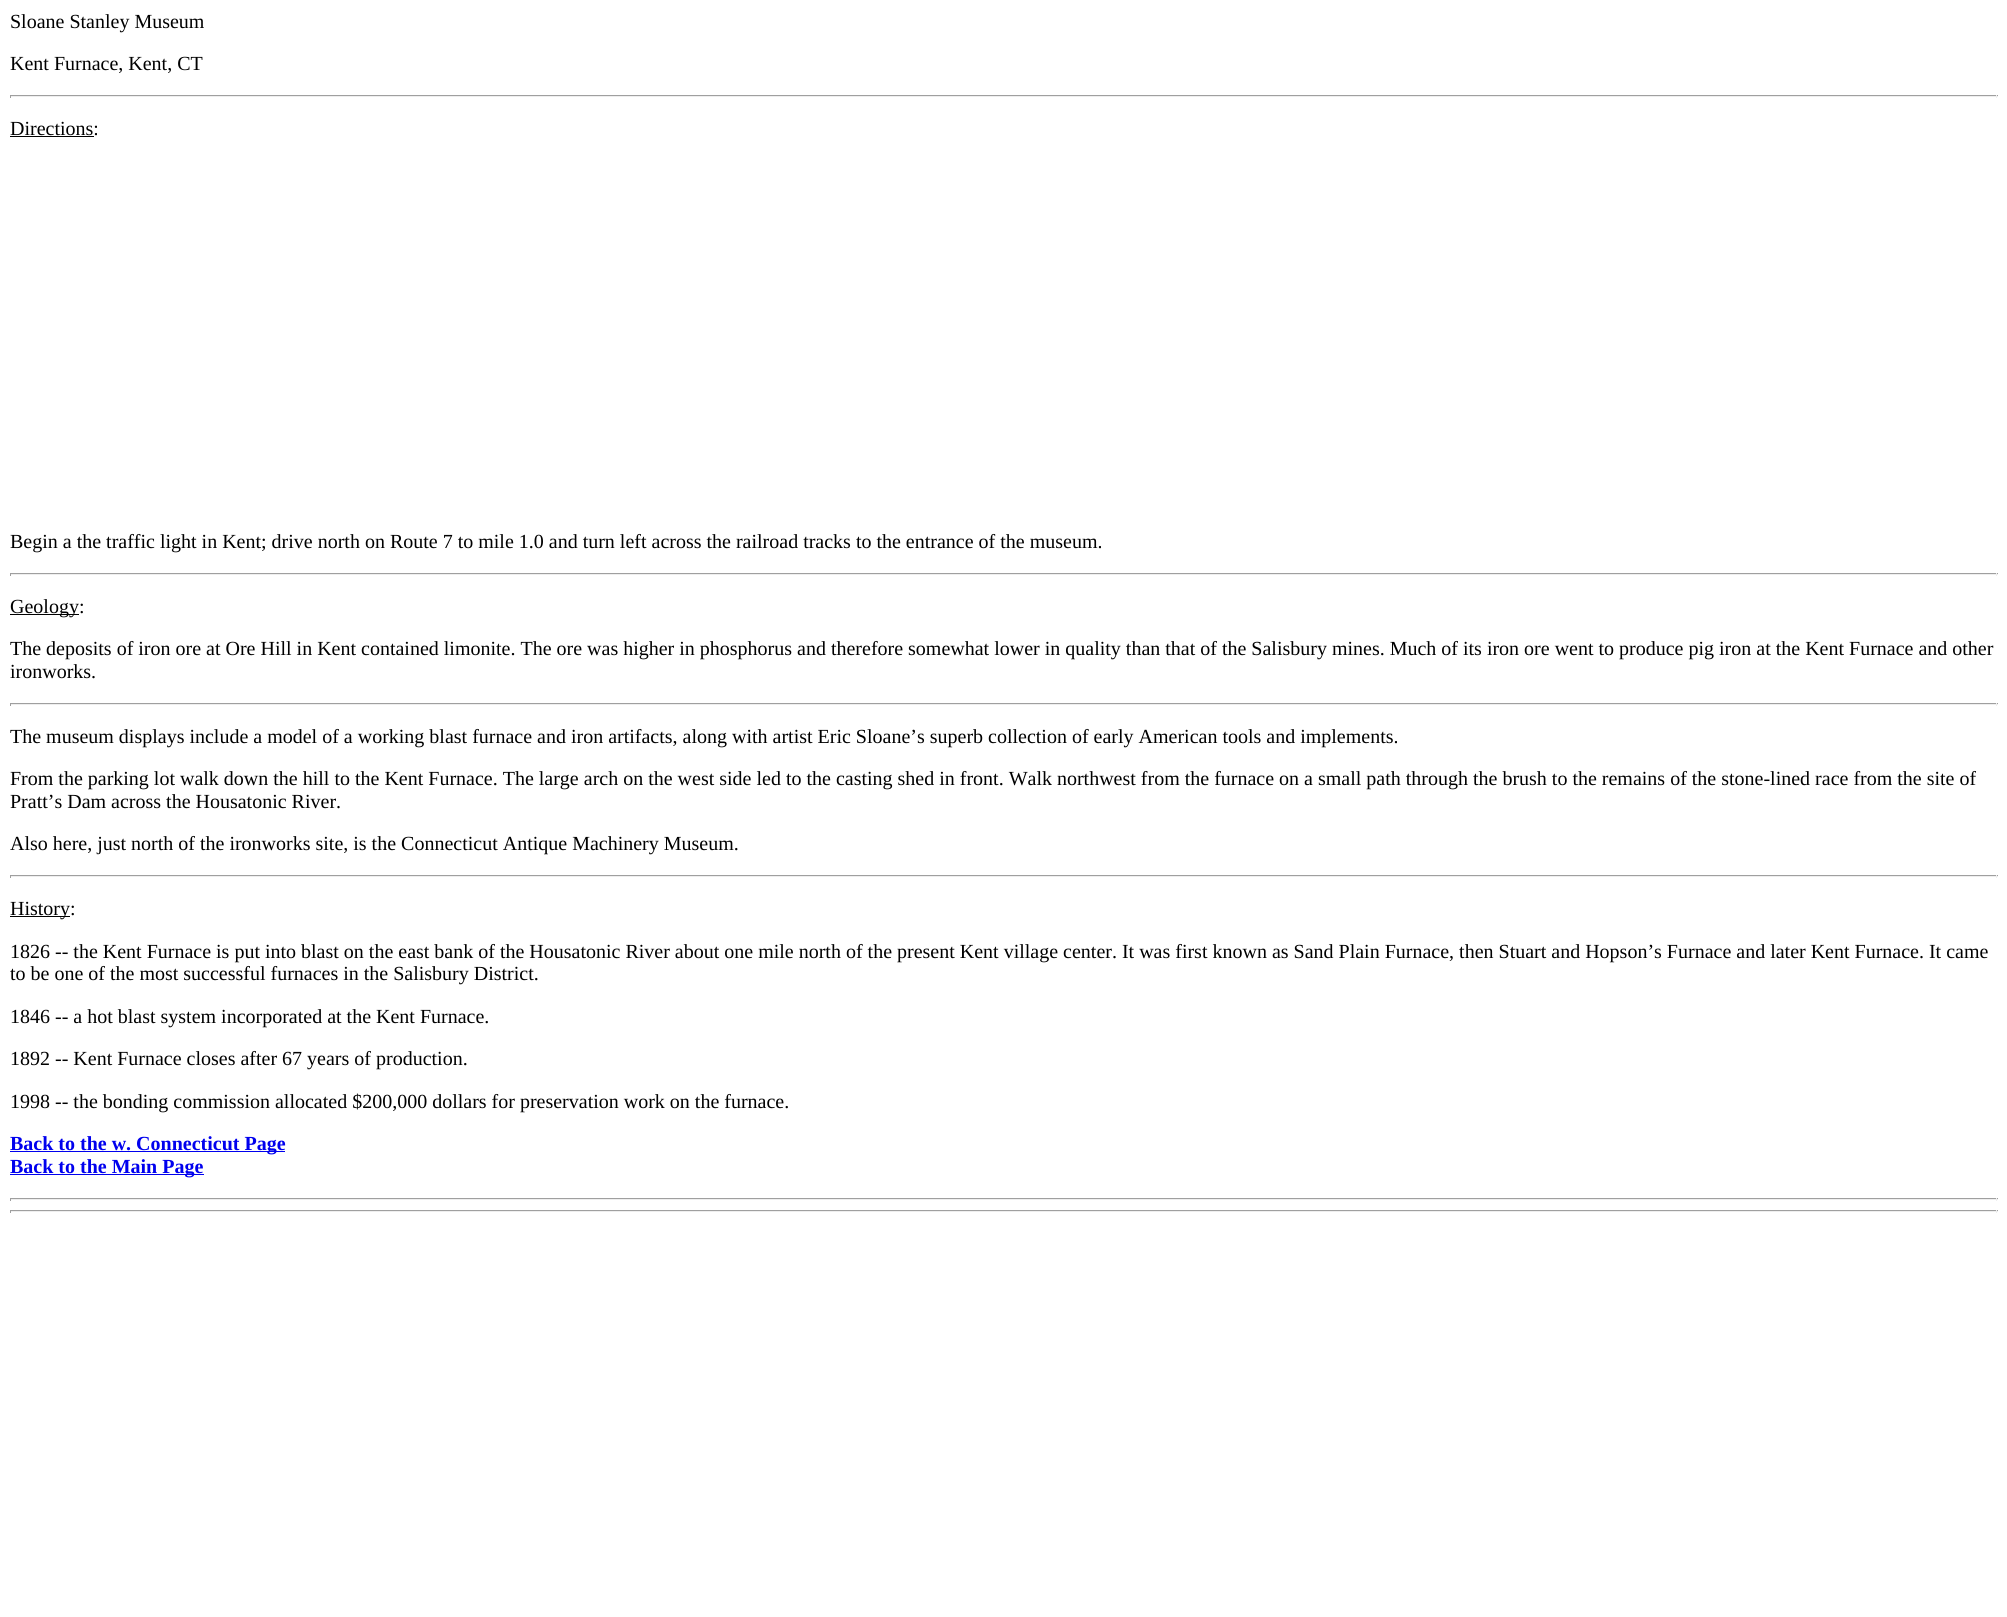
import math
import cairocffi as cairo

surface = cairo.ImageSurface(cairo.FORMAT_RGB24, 2007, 1617)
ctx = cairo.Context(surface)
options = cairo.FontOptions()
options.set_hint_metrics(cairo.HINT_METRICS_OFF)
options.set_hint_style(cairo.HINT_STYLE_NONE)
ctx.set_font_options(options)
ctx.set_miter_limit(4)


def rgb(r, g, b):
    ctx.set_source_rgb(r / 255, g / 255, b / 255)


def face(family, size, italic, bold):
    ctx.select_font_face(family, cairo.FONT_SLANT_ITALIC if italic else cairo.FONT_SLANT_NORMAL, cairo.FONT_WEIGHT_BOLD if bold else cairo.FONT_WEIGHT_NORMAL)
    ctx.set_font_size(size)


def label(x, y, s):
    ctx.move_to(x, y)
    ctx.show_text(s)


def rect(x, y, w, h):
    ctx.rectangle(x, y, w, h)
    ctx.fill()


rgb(255, 255, 255)
ctx.paint()
face('Liberation Serif', 20, 0, 0)
rgb(0, 0, 0)
label(10, 28, 'Sloane Stanley Museum')
label(10, 70, 'Kent Furnace, Kent, CT')
rgb(159, 159, 159)
rect(10, 95, 1988, 1)
rgb(238, 238, 238)
rect(1996, 95, 1, 3)
rect(10, 96, 1988, 1)
rgb(159, 159, 159)
rect(10, 95, 1, 3)
rgb(0, 0, 0)
label(10, 135, 'Directions:')
rect(10, 136, 84, 1)
label(10, 548, 'Begin a the traffic light in Kent; drive north on Route 7 to mile 1.0 and turn left across the railroad tracks to the entrance of the museum.')
rgb(159, 159, 159)
rect(10, 573, 1988, 1)
rgb(238, 238, 238)
rect(1996, 573, 1, 3)
rect(10, 574, 1988, 1)
rgb(159, 159, 159)
rect(10, 573, 1, 3)
rgb(0, 0, 0)
rect(10, 614, 69, 1)
label(10, 613, 'Geology:')
label(10, 655, 'The deposits of iron ore at Ore Hill in Kent contained limonite. The ore was higher in phosphorus and therefore somewhat lower in quality than that of the Salisbury mines. Much of its iron ore went to produce pig iron at the Kent Furnace and other')
label(10, 678, 'ironworks.')
rgb(159, 159, 159)
rect(10, 703, 1988, 1)
rgb(238, 238, 238)
rect(1996, 703, 1, 3)
rect(10, 704, 1988, 1)
rgb(159, 159, 159)
rect(10, 703, 1, 3)
rgb(0, 0, 0)
label(10, 743, 'The museum displays include a model of a working blast furnace and iron artifacts, along with artist Eric Sloane’s superb collection of early American tools and implements.')
label(10, 785, 'From the parking lot walk down the hill to the Kent Furnace. The large arch on the west side led to the casting shed in front. Walk northwest from the furnace on a small path through the brush to the remains of the stone-lined race from the site of')
label(10, 808, 'Pratt’s Dam across the Housatonic River.')
label(10, 850, 'Also here, just north of the ironworks site, is the Connecticut Antique Machinery Museum.')
rgb(159, 159, 159)
rect(10, 875, 1988, 1)
rgb(238, 238, 238)
rect(1996, 875, 1, 3)
rect(10, 876, 1988, 1)
rgb(159, 159, 159)
rect(10, 875, 1, 3)
rgb(0, 0, 0)
rect(10, 916, 60, 1)
label(10, 915, 'History:')
label(10, 958, '1826 -- the Kent Furnace is put into blast on the east bank of the Housatonic River about one mile north of the present Kent village center. It was first known as Sand Plain Furnace, then Stuart and Hopson’s Furnace and later Kent Furnace. It came')
label(10, 980, 'to be one of the most successful furnaces in the Salisbury District.')
label(10, 1023, '1846 -- a hot blast system incorporated at the Kent Furnace.')
label(10, 1065, '1892 -- Kent Furnace closes after 67 years of production.')
label(10, 1108, '1998 -- the bonding commission allocated $200,000 dollars for preservation work on the furnace.')
rgb(0, 0, 238)
rect(10, 1151, 275, 1)
face('Liberation Serif', 20, 0, 1)
label(10, 1150, 'Back to the w. Connecticut Page')
rect(10, 1174, 194, 1)
label(10, 1173, 'Back to the Main Page')
rgb(159, 159, 159)
rect(10, 1198, 1988, 1)
rgb(238, 238, 238)
rect(1996, 1198, 1, 3)
rect(10, 1199, 1988, 1)
rgb(159, 159, 159)
rect(10, 1198, 1, 3)
rect(10, 1210, 1988, 1)
rgb(238, 238, 238)
rect(1996, 1210, 1, 3)
rect(10, 1211, 1988, 1)
rgb(159, 159, 159)
rect(10, 1210, 1, 3)
surface.write_to_png('render.png')
